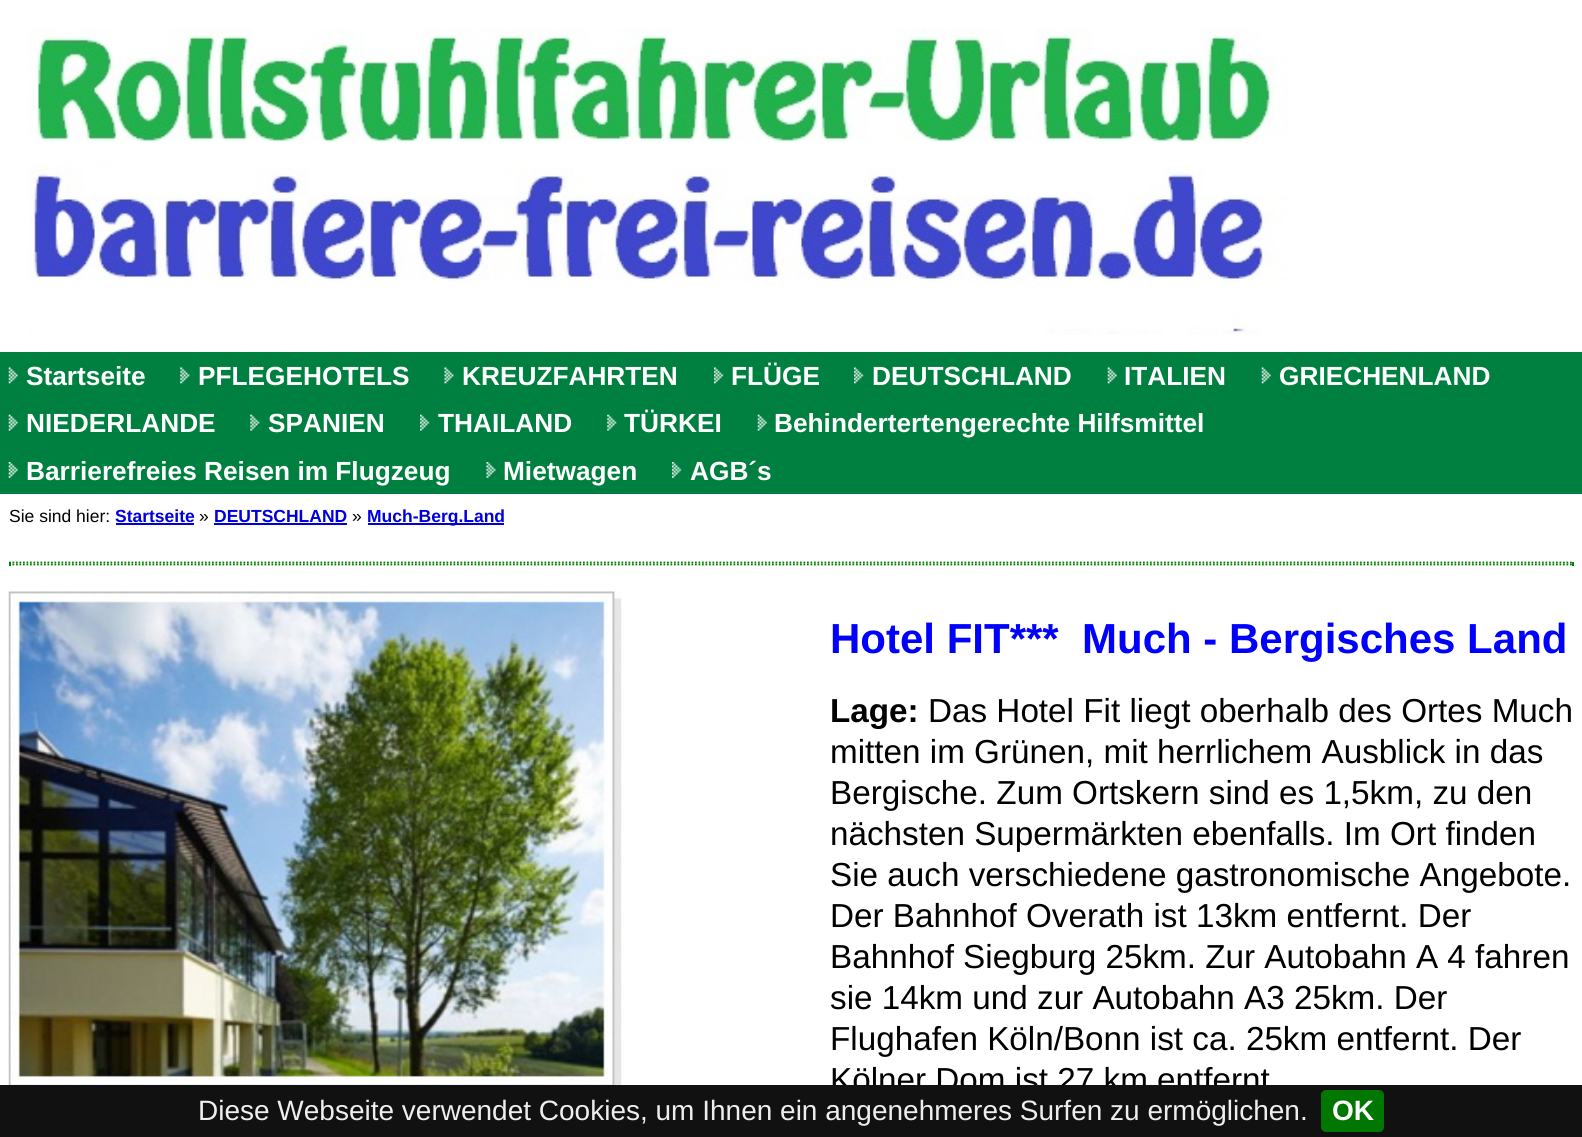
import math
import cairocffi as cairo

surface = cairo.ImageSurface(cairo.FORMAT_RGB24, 1582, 1137)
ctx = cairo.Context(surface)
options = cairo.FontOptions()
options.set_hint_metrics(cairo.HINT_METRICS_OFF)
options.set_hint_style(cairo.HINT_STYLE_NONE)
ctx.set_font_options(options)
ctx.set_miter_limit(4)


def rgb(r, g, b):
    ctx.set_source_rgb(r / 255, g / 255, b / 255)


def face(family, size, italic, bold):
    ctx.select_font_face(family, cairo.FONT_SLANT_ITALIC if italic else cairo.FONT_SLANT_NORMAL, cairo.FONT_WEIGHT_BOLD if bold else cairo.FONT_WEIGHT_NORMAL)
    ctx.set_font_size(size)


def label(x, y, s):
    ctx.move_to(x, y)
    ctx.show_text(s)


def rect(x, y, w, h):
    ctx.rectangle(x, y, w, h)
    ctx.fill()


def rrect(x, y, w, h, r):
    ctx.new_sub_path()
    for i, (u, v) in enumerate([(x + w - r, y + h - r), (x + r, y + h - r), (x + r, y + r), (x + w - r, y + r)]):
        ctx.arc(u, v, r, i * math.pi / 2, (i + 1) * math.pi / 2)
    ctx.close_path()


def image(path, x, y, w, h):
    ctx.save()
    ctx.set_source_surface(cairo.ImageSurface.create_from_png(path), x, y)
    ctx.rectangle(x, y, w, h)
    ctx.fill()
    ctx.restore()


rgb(255, 255, 255)
ctx.paint()
image('image0.png', 28, 28, 1260, 307)
rgb(0, 128, 64)
rect(0, 352, 1582, 142)
image('image1.png', 8, 367, 10, 17)
face('Liberation Sans', 26.25, 0, 1)
rgb(255, 255, 255)
label(26, 385, 'Startseite')
image('image2.png', 180, 367, 10, 17)
label(198, 385, 'PFLEGEHOTELS')
image('image3.png', 444, 367, 10, 17)
label(462, 385, 'KREUZFAHRTEN')
image('image4.png', 714, 367, 10, 17)
label(731, 385, 'FLÜGE')
image('image4.png', 854, 367, 10, 17)
label(872, 385, 'DEUTSCHLAND')
image('image5.png', 1107, 367, 10, 17)
label(1124, 385, 'ITALIEN')
image('image1.png', 1261, 367, 10, 17)
label(1279, 385, 'GRIECHENLAND')
image('image6.png', 8, 414, 10, 17)
label(26, 432, 'NIEDERLANDE')
image('image7.png', 250, 414, 10, 17)
label(268, 432, 'SPANIEN')
image('image8.png', 420, 414, 10, 17)
label(438, 432, 'THAILAND')
image('image7.png', 607, 414, 10, 17)
label(624, 432, 'TÜRKEI')
image('image6.png', 757, 414, 10, 17)
label(774, 432, 'Behindertertengerechte Hilfsmittel')
image('image9.png', 8, 462, 10, 16)
label(26, 480, 'Barrierefreies Reisen im Flugzeug')
image('image10.png', 486, 462, 10, 16)
label(503, 480, 'Mietwagen')
image('image11.png', 672, 462, 10, 16)
label(690, 480, 'AGB´s')
face('Liberation Sans', 17.5, 0, 0)
rgb(0, 0, 0)
label(9, 522, 'Sie sind hier:')
face('Liberation Sans', 17.5, 0, 1)
rgb(0, 0, 221)
label(115, 522, 'Startseite')
rect(116, 523, 78, 2)
face('Liberation Sans', 17.5, 0, 0)
rgb(0, 0, 0)
label(199, 522, '»')
face('Liberation Sans', 17.5, 0, 1)
rgb(0, 0, 221)
label(214, 522, 'DEUTSCHLAND')
rect(214, 523, 133, 2)
face('Liberation Sans', 17.5, 0, 0)
rgb(0, 0, 0)
label(352, 522, '»')
rgb(0, 0, 221)
rect(368, 523, 136, 2)
face('Liberation Sans', 17.5, 0, 1)
label(367, 522, 'Much-Berg.Land')
ctx.new_path()
ctx.move_to(9, 562.5)
ctx.line_to(1573, 562.5)
rgb(0, 128, 0)
ctx.set_line_width(1.8)
ctx.set_dash([1.75, 1.75])
ctx.stroke()
rect(1572, 562, 2, 4)
ctx.new_path()
ctx.move_to(9, 564.5)
ctx.line_to(1573, 564.5)
ctx.stroke()
rect(9, 562, 2, 4)
image('image12.png', 8, 591, 614, 494)
face('Liberation Sans', 42, 0, 1)
rgb(0, 0, 255)
label(830, 653, 'Hotel FIT***  Much - Bergisches Land')
face('Liberation Sans', 33.25, 0, 1)
rgb(0, 0, 0)
label(830, 722, 'Lage:')
face('Liberation Sans', 33.25, 0, 0)
label(928, 722, 'Das Hotel Fit liegt oberhalb des Ortes Much')
label(830, 763, 'mitten im Grünen, mit herrlichem Ausblick in das')
label(830, 804, 'Bergische. Zum Ortskern sind es 1,5km, zu den')
label(830, 845, 'nächsten Supermärkten ebenfalls. Im Ort finden')
label(830, 886, 'Sie auch verschiedene gastronomische Angebote.')
label(830, 927, 'Der Bahnhof Overath ist 13km entfernt. Der')
label(830, 968, 'Bahnhof Siegburg 25km. Zur Autobahn A 4 fahren')
label(830, 1009, 'sie 14km und zur Autobahn A3 25km. Der')
label(830, 1050, 'Flughafen Köln/Bonn ist ca. 25km entfernt. Der')
label(830, 1091, 'Kölner Dom ist 27 km entfernt')
rgb(17, 17, 17)
rect(0, 1085, 1582, 52)
face('Liberation Sans', 28, 0, 0)
rgb(238, 238, 238)
label(198, 1120, 'Diese Webseite verwendet Cookies, um Ihnen ein angenehmeres Surfen zu ermöglichen.')
rgb(0, 119, 0)
rrect(1321, 1090, 63, 42, 5)
ctx.fill()
face('Liberation Sans', 28, 0, 1)
rgb(255, 255, 255)
label(1332, 1120, 'OK')
surface.write_to_png('render.png')
